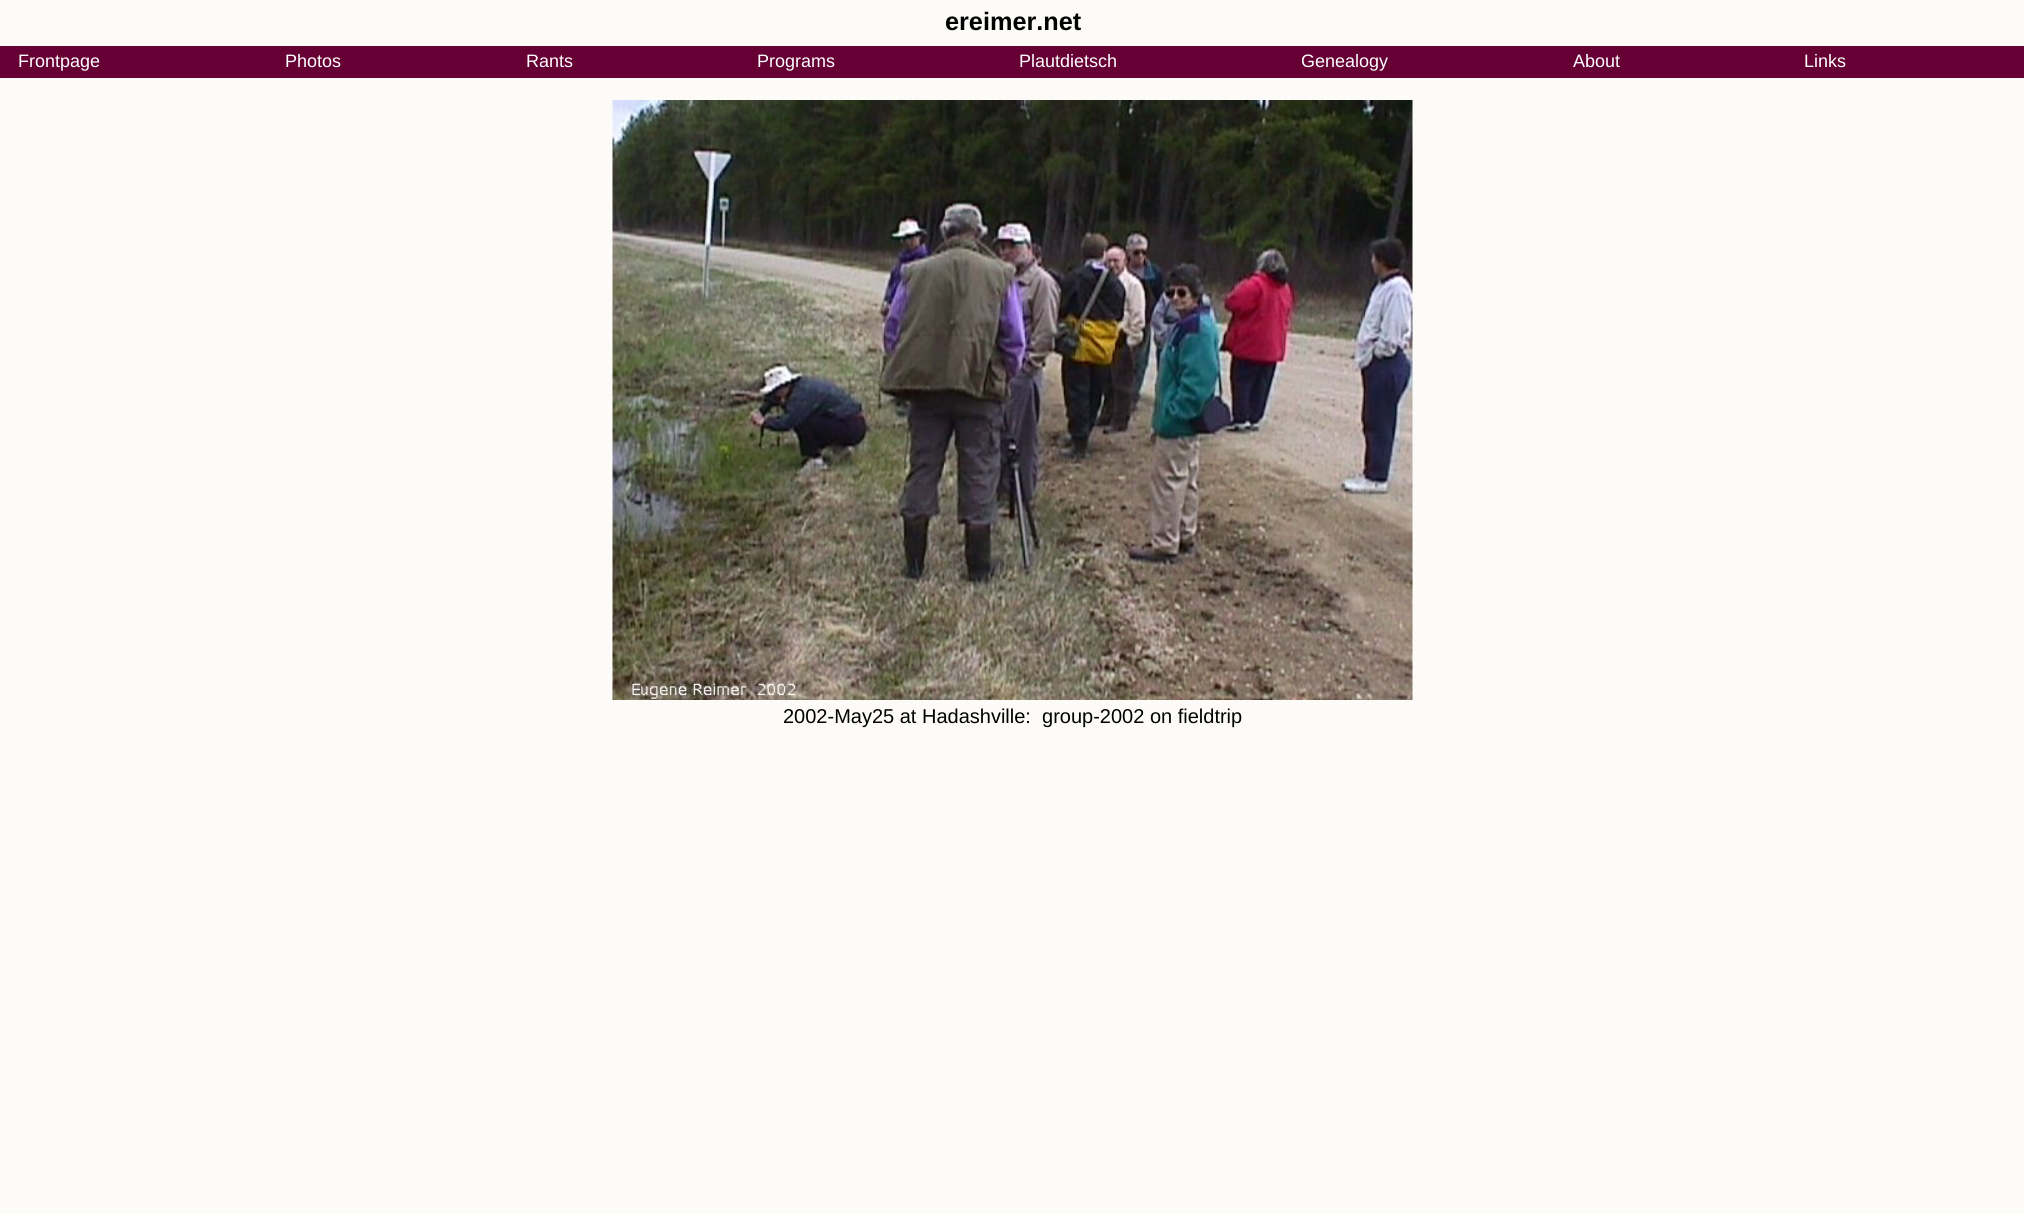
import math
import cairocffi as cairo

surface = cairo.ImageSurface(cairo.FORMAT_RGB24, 2024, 1214)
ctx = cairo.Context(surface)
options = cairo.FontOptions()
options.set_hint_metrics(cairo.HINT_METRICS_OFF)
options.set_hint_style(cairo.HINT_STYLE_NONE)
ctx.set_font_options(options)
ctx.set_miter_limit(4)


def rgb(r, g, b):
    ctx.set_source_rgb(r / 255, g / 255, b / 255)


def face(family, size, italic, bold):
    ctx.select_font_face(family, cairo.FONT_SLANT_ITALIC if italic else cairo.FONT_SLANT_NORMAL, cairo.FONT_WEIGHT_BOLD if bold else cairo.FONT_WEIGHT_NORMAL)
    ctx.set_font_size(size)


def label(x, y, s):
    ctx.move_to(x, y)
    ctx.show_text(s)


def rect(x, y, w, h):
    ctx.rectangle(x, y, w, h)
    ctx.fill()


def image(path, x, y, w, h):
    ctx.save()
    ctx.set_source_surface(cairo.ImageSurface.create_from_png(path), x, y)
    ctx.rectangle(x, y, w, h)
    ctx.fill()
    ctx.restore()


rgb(252, 251, 248)
ctx.paint()
face('Liberation Sans', 25.25, 0, 1)
rgb(0, 0, 0)
label(945, 30, 'ereimer.net')
rgb(102, 0, 52)
rect(0, 46, 2024, 32)
face('Liberation Sans', 18, 0, 0)
rgb(255, 255, 255)
label(18, 67, 'Frontpage')
label(285, 67, 'Photos')
label(526, 67, 'Rants')
label(757, 67, 'Programs')
label(1019, 67, 'Plautdietsch')
label(1301, 67, 'Genealogy')
label(1573, 67, 'About')
label(1804, 67, 'Links')
image('image0.png', 612, 100, 801, 600)
face('Liberation Sans', 20, 0, 0)
rgb(0, 0, 0)
label(783, 723, '2002-May25 at Hadashville:  group-2002 on fieldtrip')
surface.write_to_png('render.png')
